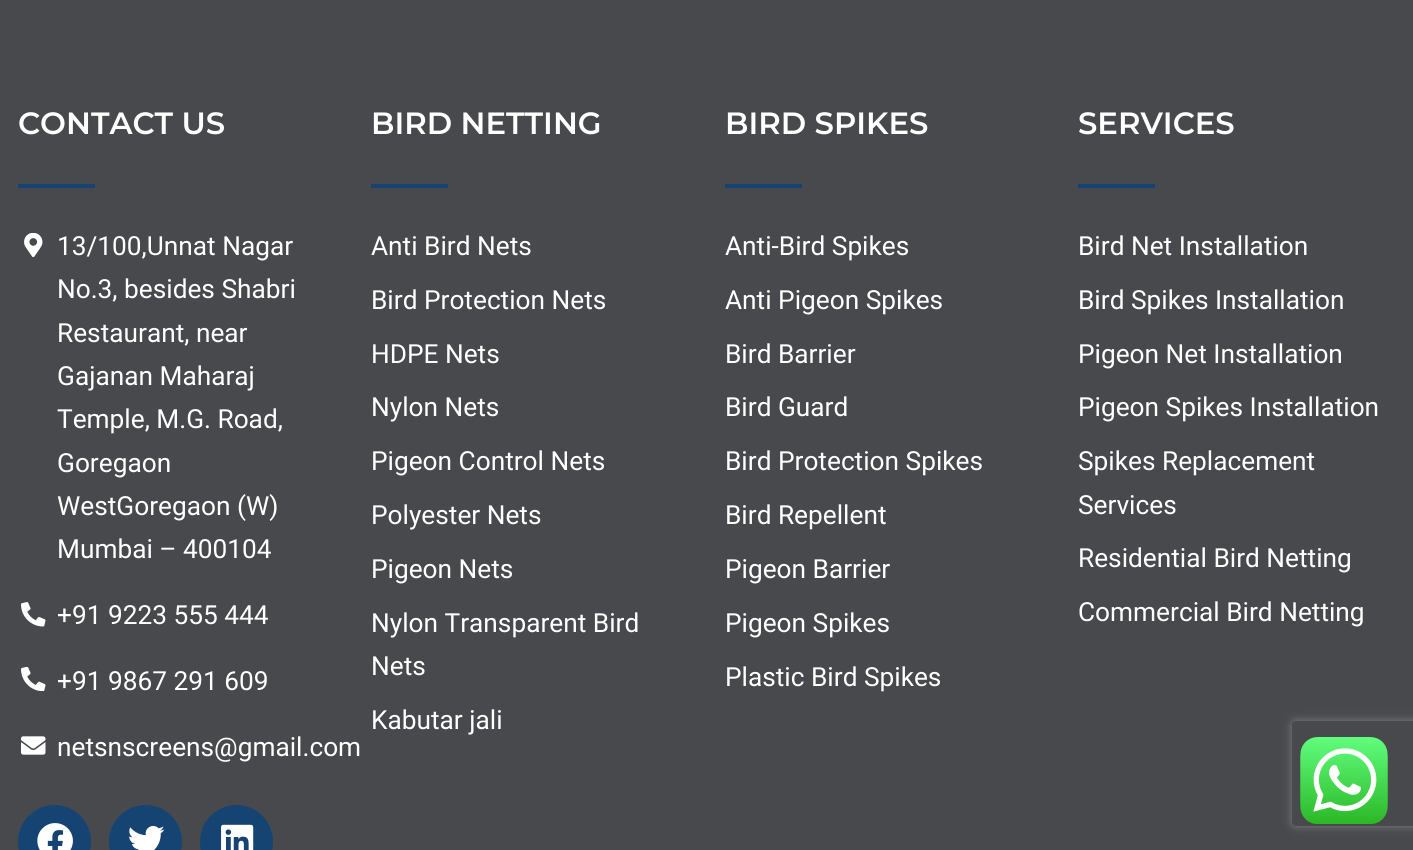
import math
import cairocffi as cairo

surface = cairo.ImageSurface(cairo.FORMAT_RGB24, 1413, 850)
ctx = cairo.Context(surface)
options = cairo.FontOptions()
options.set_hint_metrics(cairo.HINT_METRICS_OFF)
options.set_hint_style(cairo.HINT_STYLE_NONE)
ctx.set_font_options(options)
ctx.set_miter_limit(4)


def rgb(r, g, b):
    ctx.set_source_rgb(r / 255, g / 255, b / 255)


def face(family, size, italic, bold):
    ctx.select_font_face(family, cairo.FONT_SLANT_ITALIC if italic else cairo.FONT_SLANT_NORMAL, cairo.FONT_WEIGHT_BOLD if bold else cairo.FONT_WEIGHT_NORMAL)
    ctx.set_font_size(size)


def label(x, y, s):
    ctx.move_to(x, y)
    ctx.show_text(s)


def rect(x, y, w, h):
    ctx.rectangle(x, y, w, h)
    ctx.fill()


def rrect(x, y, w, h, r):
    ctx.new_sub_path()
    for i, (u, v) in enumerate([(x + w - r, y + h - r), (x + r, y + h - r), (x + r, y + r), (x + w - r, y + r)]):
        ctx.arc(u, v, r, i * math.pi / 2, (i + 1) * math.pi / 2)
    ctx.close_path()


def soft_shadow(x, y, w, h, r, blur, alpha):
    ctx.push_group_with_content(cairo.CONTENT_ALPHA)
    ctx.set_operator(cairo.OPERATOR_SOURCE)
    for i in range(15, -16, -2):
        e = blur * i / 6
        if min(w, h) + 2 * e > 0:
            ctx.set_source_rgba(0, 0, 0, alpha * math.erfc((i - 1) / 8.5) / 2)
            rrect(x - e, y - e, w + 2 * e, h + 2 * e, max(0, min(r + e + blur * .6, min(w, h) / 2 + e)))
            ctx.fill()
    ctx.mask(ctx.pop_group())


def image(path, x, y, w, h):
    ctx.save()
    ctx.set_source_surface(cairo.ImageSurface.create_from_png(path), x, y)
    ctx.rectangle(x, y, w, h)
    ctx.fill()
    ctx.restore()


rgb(72, 73, 76)
ctx.paint()
face('Montserrat SemiBold', 30.75, 0, 0)
rgb(255, 255, 255)
label(18, 134, 'CONTACT US')
rgb(21, 68, 114)
rect(18, 184, 77, 4)
image('image0.png', 24, 233, 19, 24)
face('Roboto', 26.25, 0, 0)
rgb(255, 255, 255)
label(57, 255, '13/100,Unnat Nagar')
label(57, 298, 'No.3, besides Shabri')
label(57, 342, 'Restaurant, near')
label(57, 385, 'Gajanan Maharaj')
label(57, 428, 'Temple, M.G. Road,')
label(57, 472, 'Goregaon')
label(57, 515, 'WestGoregaon (W)')
label(57, 558, 'Mumbai – 400104')
image('image1.png', 21, 602, 25, 25)
label(57, 624, '+91 9223 555 444')
image('image2.png', 21, 667, 25, 24)
label(57, 690, '+91 9867 291 609')
image('image3.png', 21, 736, 25, 19)
label(57, 756, 'netsnscreens@gmail.com')
rgb(21, 68, 114)
rrect(18, 805, 73, 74, 36.5)
ctx.fill()
image('image4.png', 37, 823, 36, 27)
rrect(109, 805, 73, 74, 36.5)
ctx.fill()
image('image5.png', 129, 826, 36, 24)
rrect(200, 805, 73, 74, 36.5)
ctx.fill()
image('image6.png', 221, 824, 33, 26)
face('Montserrat SemiBold', 30.75, 0, 0)
rgb(255, 255, 255)
label(371, 134, 'BIRD NETTING')
rgb(21, 68, 114)
rect(371, 184, 77, 4)
face('Roboto', 26.25, 0, 0)
rgb(255, 255, 255)
label(371, 255, 'Anti Bird Nets')
label(371, 309, 'Bird Protection Nets')
label(371, 363, 'HDPE Nets')
label(371, 416, 'Nylon Nets')
label(371, 470, 'Pigeon Control Nets')
label(371, 524, 'Polyester Nets')
label(371, 578, 'Pigeon Nets')
label(371, 632, 'Nylon Transparent Bird')
label(371, 675, 'Nets')
label(371, 729, 'Kabutar jali')
face('Montserrat SemiBold', 30.75, 0, 0)
label(725, 134, 'BIRD SPIKES')
rgb(21, 68, 114)
rect(725, 184, 77, 4)
face('Roboto', 26.25, 0, 0)
rgb(255, 255, 255)
label(725, 255, 'Anti-Bird Spikes')
label(725, 309, 'Anti Pigeon Spikes')
label(725, 363, 'Bird Barrier')
label(725, 416, 'Bird Guard')
label(725, 470, 'Bird Protection Spikes')
label(725, 524, 'Bird Repellent')
label(725, 578, 'Pigeon Barrier')
label(725, 632, 'Pigeon Spikes')
label(725, 686, 'Plastic Bird Spikes')
face('Montserrat SemiBold', 30.75, 0, 0)
label(1078, 134, 'SERVICES')
rgb(21, 68, 114)
rect(1078, 184, 77, 4)
face('Roboto', 26.25, 0, 0)
rgb(255, 255, 255)
label(1078, 255, 'Bird Net Installation')
label(1078, 309, 'Bird Spikes Installation')
label(1078, 363, 'Pigeon Net Installation')
label(1078, 416, 'Pigeon Spikes Installation')
label(1078, 470, 'Spikes Replacement')
label(1078, 514, 'Services')
label(1078, 567, 'Residential Bird Netting')
label(1078, 621, 'Commercial Bird Netting')
ctx.save()
ctx.set_fill_rule(cairo.FILL_RULE_EVEN_ODD)
ctx.new_path()
ctx.move_to(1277, 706)
ctx.line_to(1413, 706)
ctx.line_to(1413, 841)
ctx.line_to(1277, 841)
ctx.close_path()
ctx.move_to(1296, 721)
ctx.line_to(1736, 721)
ctx.curve_to(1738, 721, 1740, 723, 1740, 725)
ctx.line_to(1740, 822)
ctx.curve_to(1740, 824, 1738, 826, 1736, 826)
ctx.line_to(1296, 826)
ctx.curve_to(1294, 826, 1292, 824, 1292, 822)
ctx.line_to(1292, 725)
ctx.curve_to(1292, 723, 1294, 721, 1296, 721)
ctx.close_path()
ctx.clip()
rgb(128, 128, 128)
soft_shadow(1292, 721, 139, 105, 4, 4.5, 1)
ctx.restore()
image('image7.png', 1300, 737, 88, 87)
surface.write_to_png('render.png')
